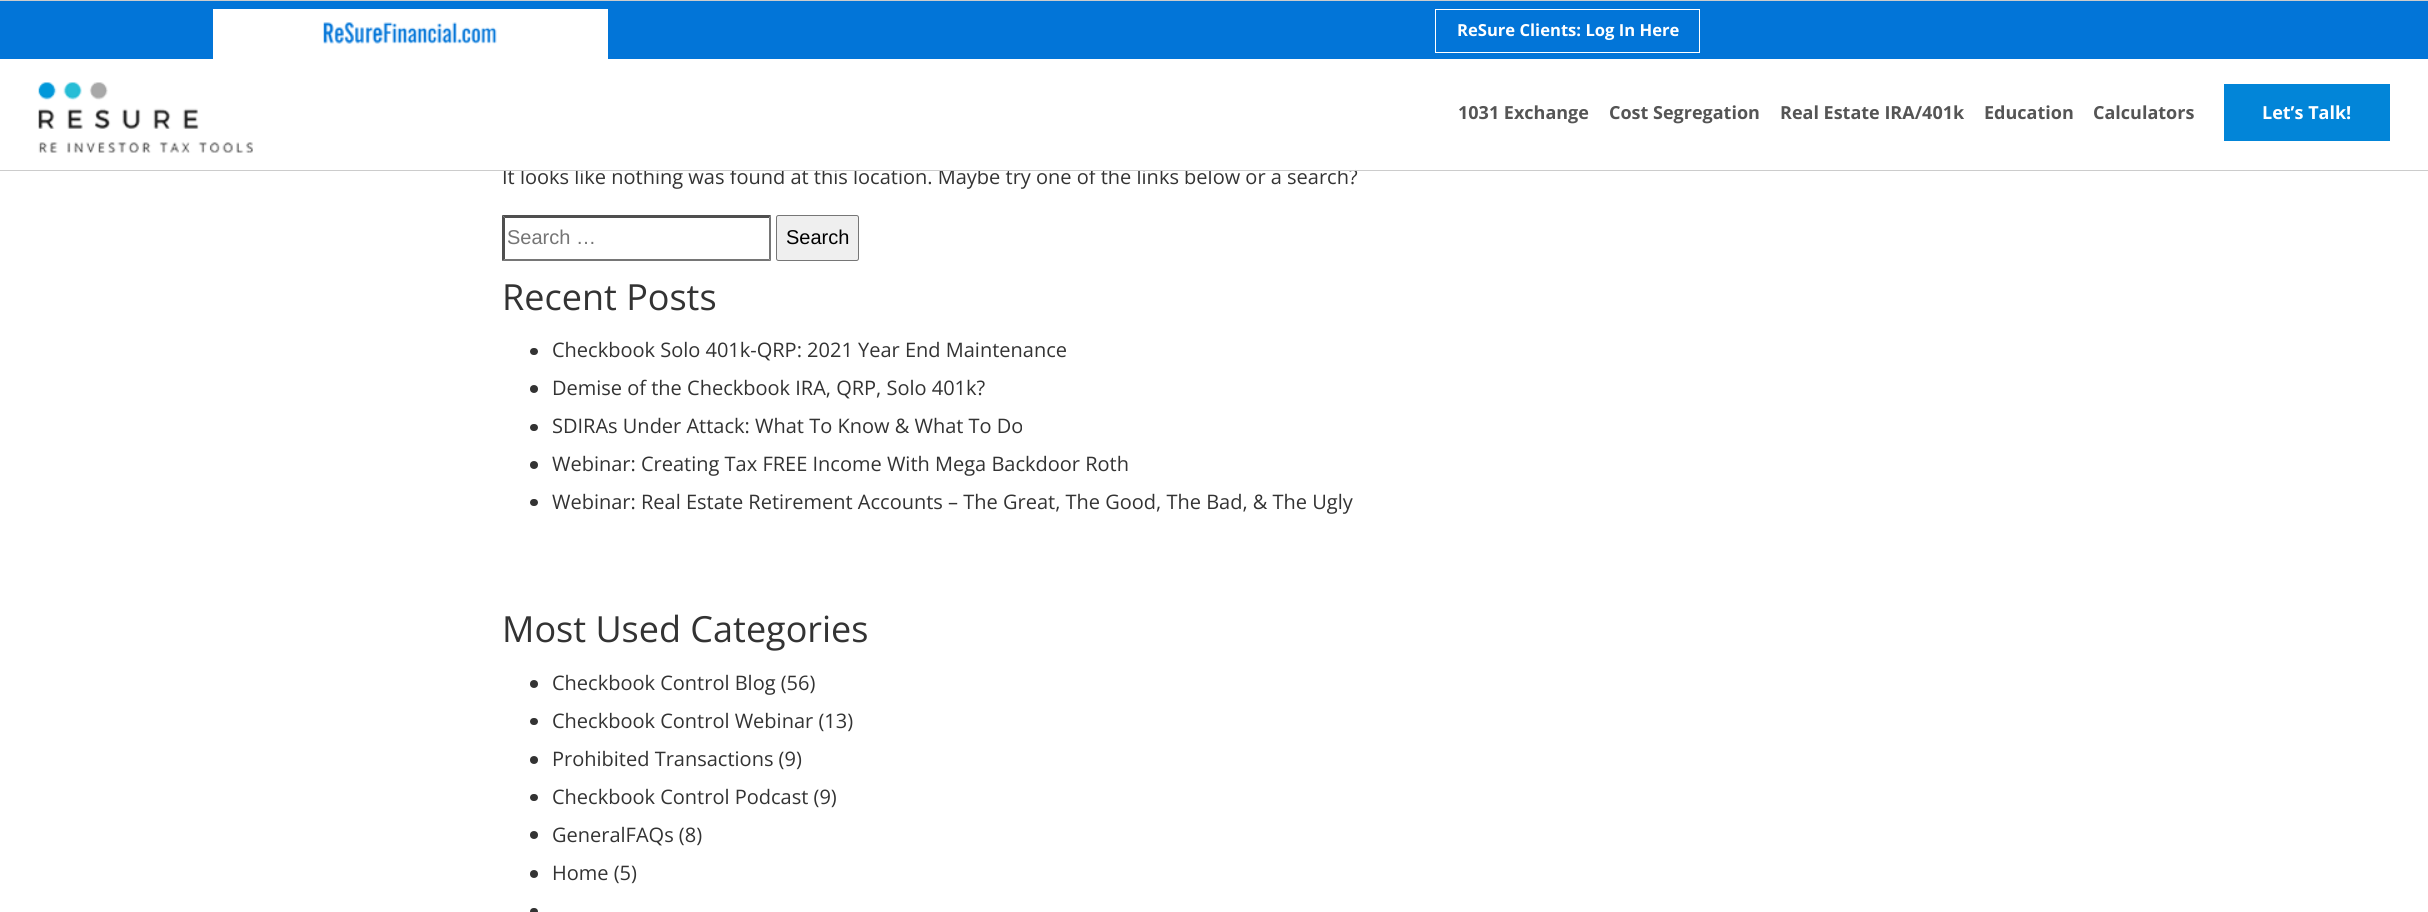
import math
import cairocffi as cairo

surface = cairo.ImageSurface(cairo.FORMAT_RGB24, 2428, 912)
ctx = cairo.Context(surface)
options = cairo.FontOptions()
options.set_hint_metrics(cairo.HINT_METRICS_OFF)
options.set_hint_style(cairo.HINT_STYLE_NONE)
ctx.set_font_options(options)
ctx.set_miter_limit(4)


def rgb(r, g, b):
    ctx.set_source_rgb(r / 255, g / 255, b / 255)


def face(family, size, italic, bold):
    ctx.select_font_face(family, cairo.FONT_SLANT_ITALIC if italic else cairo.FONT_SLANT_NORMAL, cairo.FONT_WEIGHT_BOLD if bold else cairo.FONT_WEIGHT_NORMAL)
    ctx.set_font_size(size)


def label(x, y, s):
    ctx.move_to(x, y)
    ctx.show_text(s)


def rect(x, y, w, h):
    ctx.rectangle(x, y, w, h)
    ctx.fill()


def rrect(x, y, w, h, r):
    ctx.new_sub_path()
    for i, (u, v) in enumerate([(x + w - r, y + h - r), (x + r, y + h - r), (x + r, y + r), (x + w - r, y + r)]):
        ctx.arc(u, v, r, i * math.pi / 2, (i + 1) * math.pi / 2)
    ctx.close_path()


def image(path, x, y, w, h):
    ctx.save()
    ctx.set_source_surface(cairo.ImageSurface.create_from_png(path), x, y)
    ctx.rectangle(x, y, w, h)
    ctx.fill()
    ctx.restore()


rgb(255, 255, 255)
ctx.paint()
face('Open Sans', 20, 0, 0)
rgb(51, 51, 51)
label(502, 184, 'It looks like nothing was found at this location. Maybe try one of the links below or a search?')
rgb(255, 255, 255)
rect(503, 168, 852, 2)
rgb(204, 204, 204)
rect(0, 0, 2428, 1)
rect(0, 170, 2428, 1)
rgb(2, 117, 216)
rect(0, 1, 2428, 58)
rgb(255, 255, 255)
rect(213, 9, 395, 50)
image('image0.png', 323, 22, 174, 22)
ctx.rectangle(1435.5, 9.5, 264, 43)
ctx.set_line_width(1)
ctx.stroke()
face('Open Sans', 16.6, 0, 1)
label(1457, 36, 'ReSure Clients: Log In Here')
image('image1.png', 38, 82, 215, 71)
face('Open Sans', 18, 0, 1)
rgb(85, 85, 85)
label(1458, 119, '1031 Exchange')
label(1609, 119, 'Cost Segregation')
label(1780, 119, 'Real Estate IRA/401k')
label(1984, 119, 'Education')
label(2093, 119, 'Calculators')
rgb(2, 133, 216)
rect(2224, 84, 166, 57)
rgb(255, 255, 255)
label(2262, 119, 'Let’s Talk!')
rgb(79, 79, 79)
ctx.new_path()
ctx.move_to(502, 215)
ctx.line_to(771, 215)
ctx.line_to(769, 218)
ctx.line_to(505, 218)
ctx.close_path()
ctx.fill()
rgb(118, 118, 118)
ctx.new_path()
ctx.move_to(771, 215)
ctx.line_to(771, 261)
ctx.line_to(769, 259)
ctx.line_to(769, 218)
ctx.close_path()
ctx.fill()
ctx.new_path()
ctx.move_to(771, 261)
ctx.line_to(502, 261)
ctx.line_to(505, 259)
ctx.line_to(769, 259)
ctx.close_path()
ctx.fill()
rgb(79, 79, 79)
ctx.new_path()
ctx.move_to(502, 261)
ctx.line_to(502, 215)
ctx.line_to(505, 218)
ctx.line_to(505, 259)
ctx.close_path()
ctx.fill()
face('Liberation Sans', 20, 0, 0)
rgb(117, 117, 117)
label(507, 244, 'Search …')
rgb(239, 239, 239)
rrect(776.5, 215.5, 82, 45, 2)
ctx.fill_preserve()
rgb(118, 118, 118)
ctx.stroke()
rgb(0, 0, 0)
label(786, 244, 'Search')
face('Open Sans', 36, 0, 0)
rgb(51, 51, 51)
label(502, 310, 'Recent Posts')
rrect(530, 348, 8, 7, 3.5)
ctx.fill()
face('Open Sans', 20, 0, 0)
label(552, 357, 'Checkbook Solo 401k-QRP: 2021 Year End Maintenance')
ctx.new_path()
ctx.arc(534, 389, 4, 0, 2 * math.pi)
ctx.fill()
label(552, 395, 'Demise of the Checkbook IRA, QRP, Solo 401k?')
rrect(530, 424, 8, 7, 3.5)
ctx.fill()
label(552, 433, 'SDIRAs Under Attack: What To Know & What To Do')
ctx.new_path()
ctx.arc(534, 465, 4, 0, 2 * math.pi)
ctx.fill()
label(552, 471, 'Webinar: Creating Tax FREE Income With Mega Backdoor Roth')
rrect(530, 499, 8, 7, 3.5)
ctx.fill()
label(552, 509, 'Webinar: Real Estate Retirement Accounts – The Great, The Good, The Bad, & The Ugly')
face('Open Sans', 36, 0, 0)
label(502, 642, 'Most Used Categories')
ctx.new_path()
ctx.arc(534, 684, 4, 0, 2 * math.pi)
ctx.fill()
face('Open Sans', 20, 0, 0)
label(552, 690, 'Checkbook Control Blog (56)')
rrect(530, 718, 8, 7, 3.5)
ctx.fill()
label(552, 728, 'Checkbook Control Webinar (13)')
ctx.new_path()
ctx.arc(534, 760, 4, 0, 2 * math.pi)
ctx.fill()
label(552, 766, 'Prohibited Transactions (9)')
rrect(530, 794, 8, 7, 3.5)
ctx.fill()
label(552, 804, 'Checkbook Control Podcast (9)')
ctx.new_path()
ctx.arc(534, 835, 4, 0, 2 * math.pi)
ctx.fill()
label(552, 842, 'GeneralFAQs (8)')
ctx.new_path()
ctx.arc(534, 874, 4, 0, 2 * math.pi)
ctx.fill()
label(552, 880, 'Home (5)')
rrect(530, 908, 8, 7, 3.5)
ctx.fill()
surface.write_to_png('render.png')
